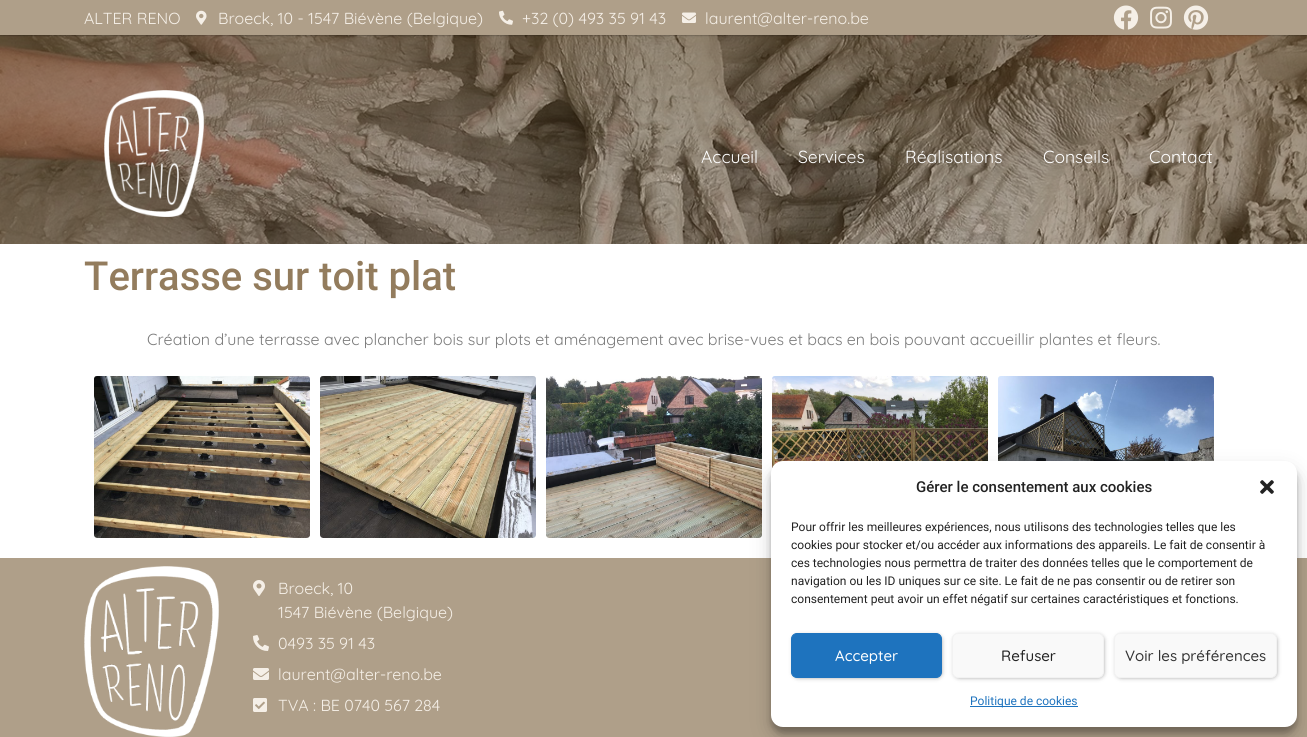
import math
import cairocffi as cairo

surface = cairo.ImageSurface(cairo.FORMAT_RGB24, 1307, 737)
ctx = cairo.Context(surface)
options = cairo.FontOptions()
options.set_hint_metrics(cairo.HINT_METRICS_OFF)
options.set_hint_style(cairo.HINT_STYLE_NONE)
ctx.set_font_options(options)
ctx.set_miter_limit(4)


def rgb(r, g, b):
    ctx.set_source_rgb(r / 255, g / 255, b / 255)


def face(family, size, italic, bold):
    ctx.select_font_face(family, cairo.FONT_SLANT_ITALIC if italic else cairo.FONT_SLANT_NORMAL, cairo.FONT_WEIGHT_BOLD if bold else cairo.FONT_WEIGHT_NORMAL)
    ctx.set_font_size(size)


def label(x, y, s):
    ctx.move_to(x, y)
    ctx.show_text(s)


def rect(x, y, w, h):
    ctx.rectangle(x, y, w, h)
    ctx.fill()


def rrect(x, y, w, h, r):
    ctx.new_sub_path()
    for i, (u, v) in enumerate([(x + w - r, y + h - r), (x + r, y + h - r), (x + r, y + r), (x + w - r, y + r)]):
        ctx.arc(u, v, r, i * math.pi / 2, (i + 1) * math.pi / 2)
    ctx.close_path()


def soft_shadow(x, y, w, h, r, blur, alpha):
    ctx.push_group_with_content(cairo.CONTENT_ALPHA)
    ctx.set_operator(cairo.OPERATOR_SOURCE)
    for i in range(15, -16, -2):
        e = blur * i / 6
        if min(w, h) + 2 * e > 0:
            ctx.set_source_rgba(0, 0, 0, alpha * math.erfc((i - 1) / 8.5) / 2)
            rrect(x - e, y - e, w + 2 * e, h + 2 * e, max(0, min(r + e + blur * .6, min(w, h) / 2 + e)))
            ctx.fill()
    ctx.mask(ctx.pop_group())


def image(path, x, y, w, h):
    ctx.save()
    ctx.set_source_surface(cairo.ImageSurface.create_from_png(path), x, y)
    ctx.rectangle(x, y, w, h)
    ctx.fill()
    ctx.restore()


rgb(255, 255, 255)
ctx.paint()
image('image6.png', 0, 35, 1307, 209)
rgb(0, 0, 0)
soft_shadow(0, 0, 1307, 35, 0, 1, 0.5)
rgb(175, 159, 137)
rect(0, 0, 1307, 35)
face('Quicksand', 16, 0, 0)
rgb(245, 239, 231)
label(84, 24, 'ALTER RENO')
image('image0.png', 196, 10, 11, 15)
label(218, 24, 'Broeck, 10 - 1547 Biévène (Belgique)')
image('image1.png', 499, 10, 14, 15)
label(522, 24, '+32 (0) 493 35 91 43')
image('image2.png', 682, 12, 14, 11)
label(705, 24, 'laurent@alter-reno.be')
image('image3.png', 1113, 5, 26, 25)
image('image4.png', 1150, 6, 22, 23)
image('image5.png', 1183, 5, 26, 25)
image('image7.png', 104, 90, 100, 127)
face('Quicksand', 17.5, 0, 0)
rgb(255, 255, 255)
label(701, 163, 'Accueil')
label(798, 163, 'Services')
label(905, 163, 'Réalisations')
label(1043, 163, 'Conseils')
label(1149, 163, 'Contact')
face('Roboto Medium', 40, 0, 0)
rgb(147, 124, 93)
label(84, 290, 'Terrasse sur toit plat')
face('Quicksand', 16, 0, 0)
rgb(122, 122, 122)
label(147, 345, 'Création d’une terrasse avec plancher bois sur plots et aménagement avec brise-vues et bacs en bois pouvant accueillir plantes et fleurs.')
image('image8.png', 94, 376, 216, 162)
image('image9.png', 320, 376, 216, 162)
image('image10.png', 546, 376, 216, 162)
image('image11.png', 772, 376, 216, 93)
image('image12.png', 998, 376, 216, 85)
rgb(175, 159, 137)
rect(0, 558, 1307, 179)
image('image13.png', 84, 566, 135, 171)
image('image14.png', 253, 580, 12, 16)
rgb(245, 239, 231)
label(278, 594, 'Broeck, 10')
label(278, 618, '1547 Biévène (Belgique)')
image('image15.png', 253, 635, 16, 16)
label(278, 649, '0493 35 91 43')
image('image16.png', 253, 668, 16, 12)
label(278, 680, 'laurent@alter-reno.be')
image('image17.png', 253, 698, 14, 14)
label(278, 711, 'TVA : BE 0740 567 284')
rgb(0, 0, 0)
soft_shadow(771, 467, 526, 266, 12, 3, 0.23)
soft_shadow(771, 471, 526, 266, 12, 10, 0.19)
rgb(255, 255, 255)
rrect(771, 461, 526, 266, 12)
ctx.fill()
face('Roboto Medium', 15, 0, 0)
rgb(34, 34, 34)
label(916, 492, 'Gérer le consentement aux cookies')
image('image18.png', 1260, 480, 14, 14)
face('Roboto', 12, 0, 0)
label(791, 531, 'Pour offrir les meilleures expériences, nous utilisons des technologies telles que les')
label(791, 549, 'cookies pour stocker et/ou accéder aux informations des appareils. Le fait de consentir à')
label(791, 567, 'ces technologies nous permettra de traiter des données telles que le comportement de')
label(791, 585, 'navigation ou les ID uniques sur ce site. Le fait de ne pas consentir ou de retirer son')
label(791, 603, 'consentement peut avoir un effet négatif sur certaines caractéristiques et fonctions.')
rgb(0, 0, 0)
soft_shadow(794, 636, 147, 41, 4, 2.5, 0.5)
rgb(30, 115, 190)
rrect(791.5, 633.5, 150, 44, 5.5)
ctx.fill_preserve()
ctx.set_line_width(1)
ctx.stroke()
face('Quicksand Medium', 15, 0, 0)
rgb(255, 255, 255)
label(835, 661, 'Accepter')
rgb(0, 0, 0)
soft_shadow(955, 636, 148, 41, 4, 2.5, 0.5)
rgb(249, 249, 249)
rrect(952.5, 633.5, 151, 44, 5.5)
ctx.fill_preserve()
rgb(242, 242, 242)
ctx.stroke()
rgb(34, 34, 34)
label(1001, 661, 'Refuser')
rgb(0, 0, 0)
soft_shadow(1117, 636, 159, 41, 4, 2.5, 0.5)
rgb(249, 249, 249)
rrect(1114.5, 633.5, 162, 44, 5.5)
ctx.fill_preserve()
rgb(242, 242, 242)
ctx.stroke()
rgb(51, 51, 51)
label(1125, 661, 'Voir les préférences')
rgb(30, 115, 190)
rect(970, 706, 108, 1)
face('Roboto', 12, 0, 0)
label(970, 705, 'Politique de cookies')
surface.write_to_png('render.png')
